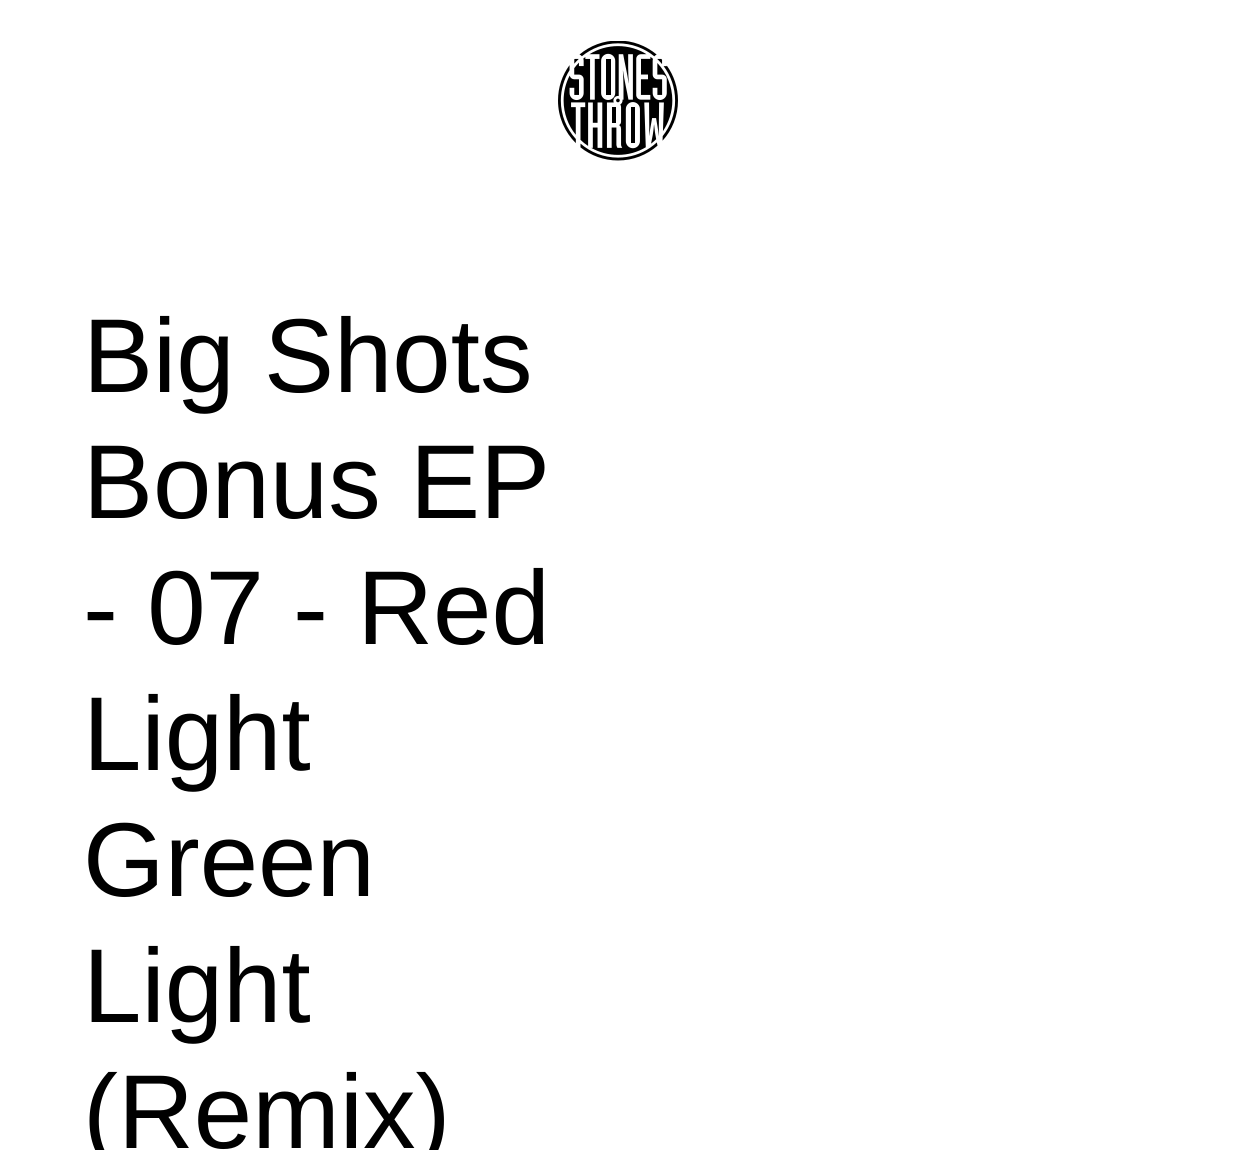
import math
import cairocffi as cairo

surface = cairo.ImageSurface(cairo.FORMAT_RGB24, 1236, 1150)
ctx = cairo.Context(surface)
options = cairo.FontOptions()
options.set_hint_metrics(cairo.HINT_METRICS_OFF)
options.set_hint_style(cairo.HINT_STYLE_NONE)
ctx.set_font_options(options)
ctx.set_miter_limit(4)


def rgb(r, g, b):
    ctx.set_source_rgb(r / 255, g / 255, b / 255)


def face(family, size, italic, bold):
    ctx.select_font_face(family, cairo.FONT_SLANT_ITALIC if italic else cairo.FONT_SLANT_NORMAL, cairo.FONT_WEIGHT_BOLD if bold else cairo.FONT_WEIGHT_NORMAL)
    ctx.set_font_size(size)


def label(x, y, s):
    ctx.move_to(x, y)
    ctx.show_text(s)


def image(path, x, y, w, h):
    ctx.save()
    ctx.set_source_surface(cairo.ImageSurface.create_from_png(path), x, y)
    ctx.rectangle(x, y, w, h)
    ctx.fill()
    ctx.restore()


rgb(255, 255, 255)
ctx.paint()
image('image0.png', 558, 41, 120, 120)
face('Liberation Sans', 105, 0, 0)
rgb(0, 0, 0)
label(83, 392, 'Big Shots')
label(83, 518, 'Bonus EP')
label(83, 644, '- 07 - Red')
label(83, 770, 'Light')
label(83, 896, 'Green')
label(83, 1022, 'Light')
label(83, 1148, '(Remix)')
surface.write_to_png('render.png')
